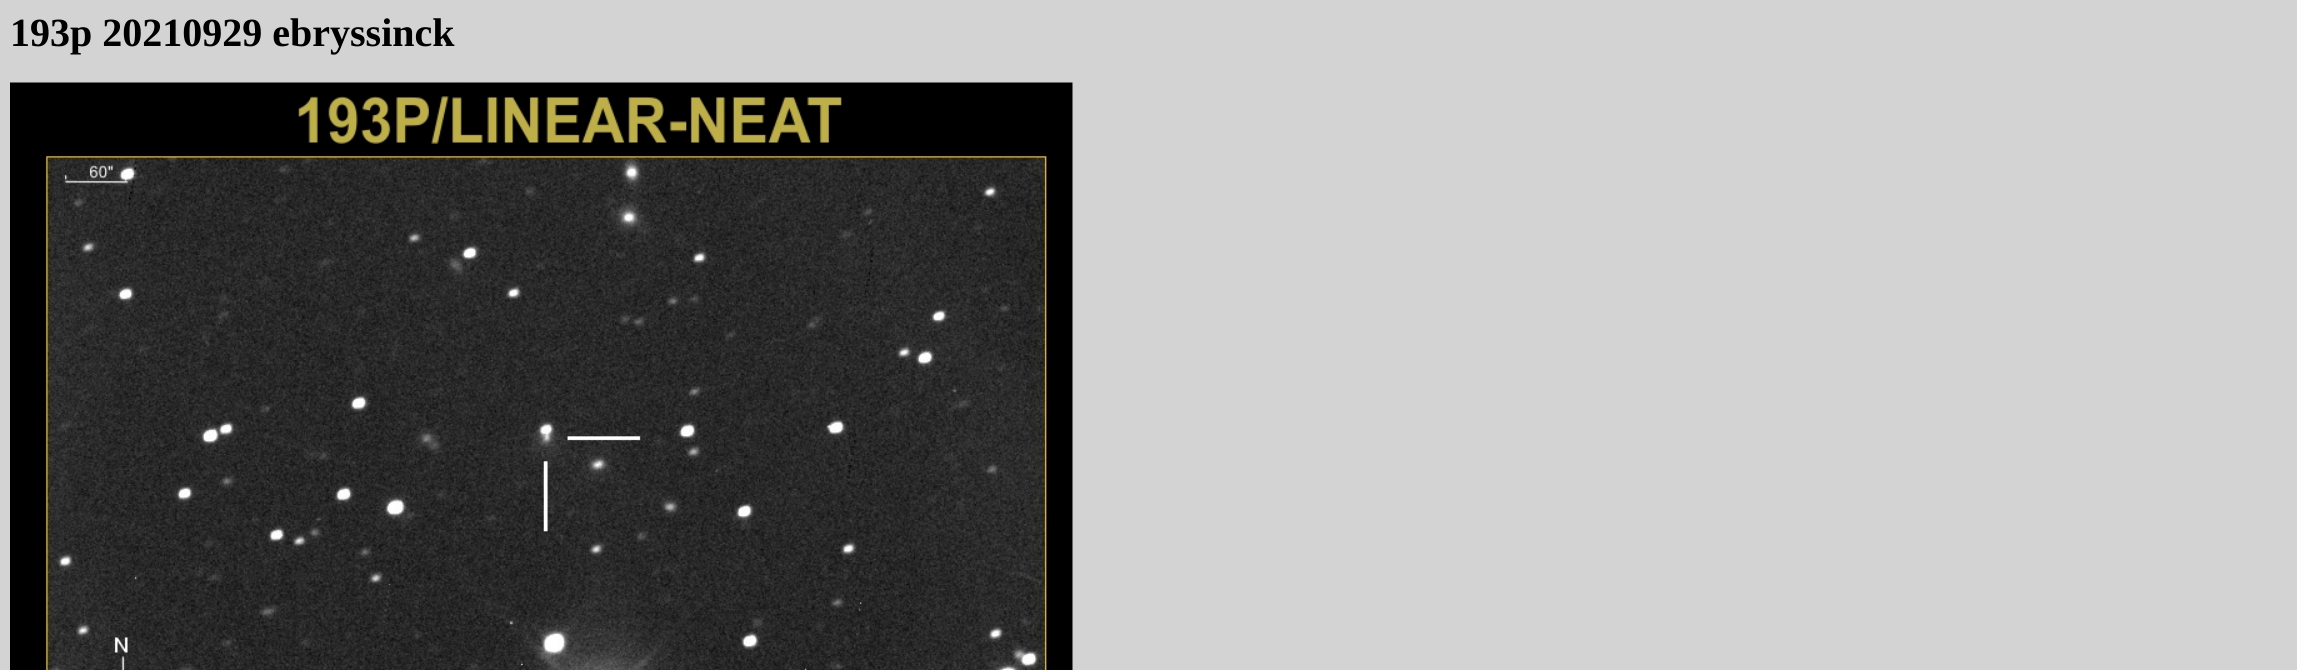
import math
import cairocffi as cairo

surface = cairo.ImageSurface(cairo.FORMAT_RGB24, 2297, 670)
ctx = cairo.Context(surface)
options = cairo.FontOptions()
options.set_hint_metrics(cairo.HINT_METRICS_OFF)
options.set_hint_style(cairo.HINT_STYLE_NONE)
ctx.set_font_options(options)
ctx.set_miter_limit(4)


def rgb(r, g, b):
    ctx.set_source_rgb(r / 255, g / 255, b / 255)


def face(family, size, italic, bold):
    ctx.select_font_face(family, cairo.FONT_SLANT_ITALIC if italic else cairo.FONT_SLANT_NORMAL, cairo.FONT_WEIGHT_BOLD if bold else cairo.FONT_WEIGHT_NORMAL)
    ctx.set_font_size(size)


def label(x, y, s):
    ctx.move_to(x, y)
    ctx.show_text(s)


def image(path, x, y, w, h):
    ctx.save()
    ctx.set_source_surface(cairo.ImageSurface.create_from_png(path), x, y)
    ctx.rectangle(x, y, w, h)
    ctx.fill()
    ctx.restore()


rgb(211, 211, 211)
ctx.paint()
face('Liberation Serif', 40, 0, 1)
rgb(0, 0, 0)
label(10, 46, '193p 20210929 ebryssinck')
image('image0.png', 10, 82, 1063, 588)
surface.write_to_png('render.png')
